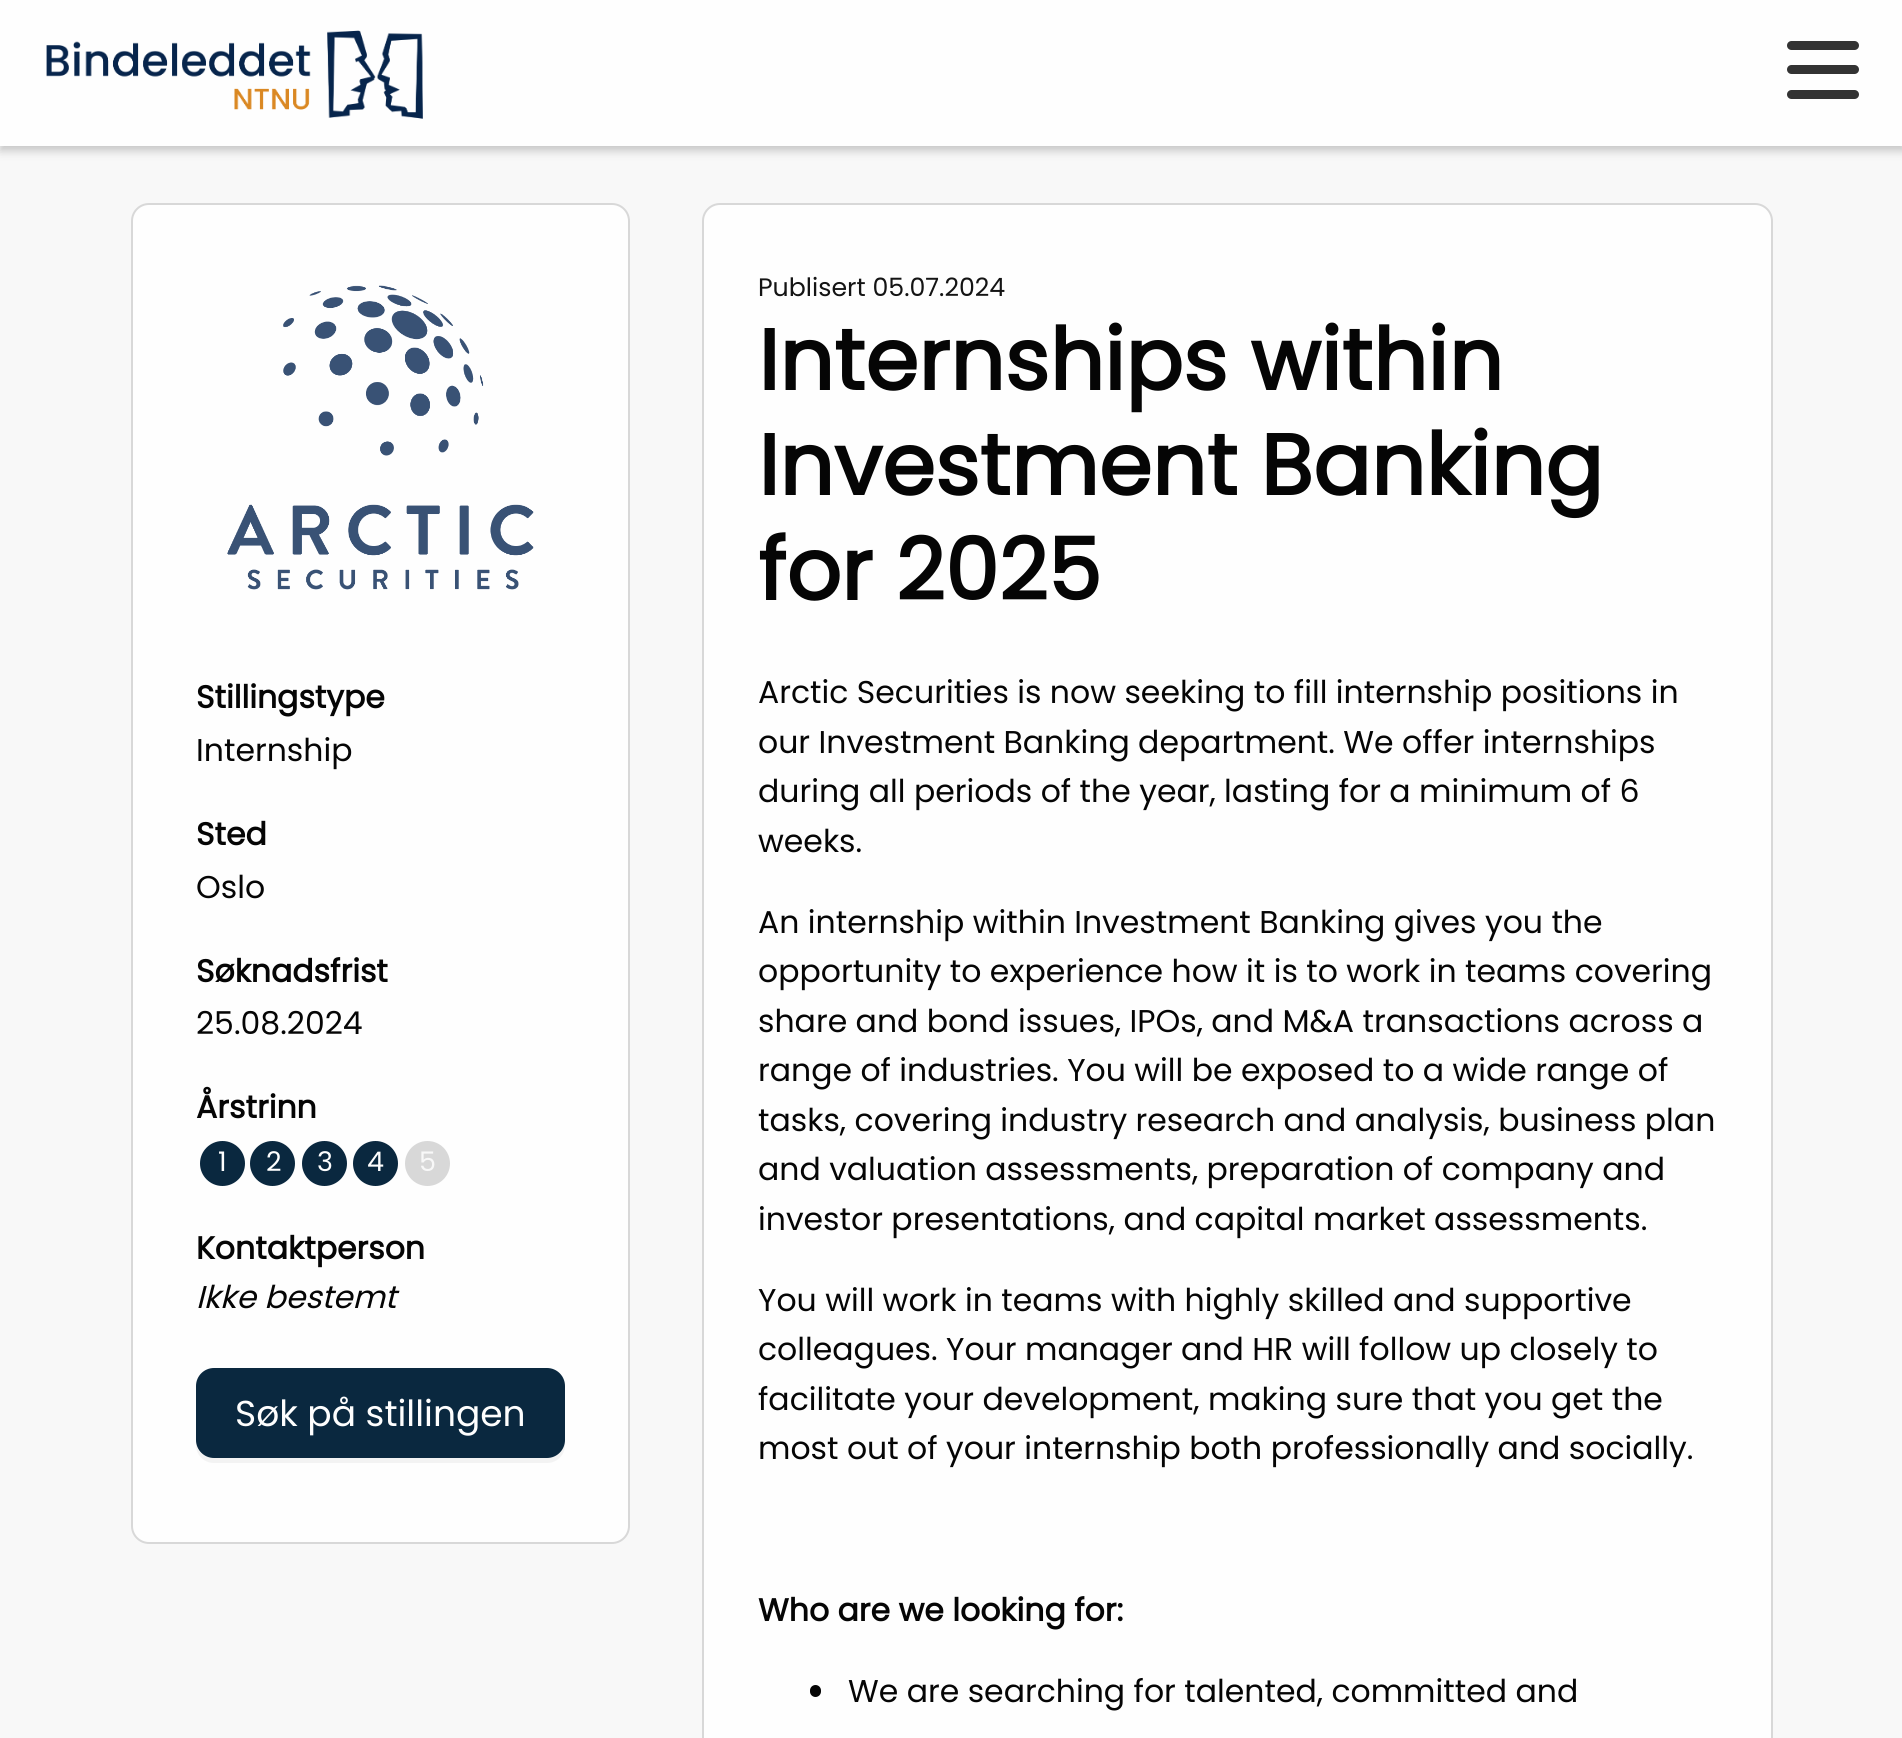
import math
import cairocffi as cairo

surface = cairo.ImageSurface(cairo.FORMAT_RGB24, 1902, 1738)
ctx = cairo.Context(surface)
options = cairo.FontOptions()
options.set_hint_metrics(cairo.HINT_METRICS_OFF)
options.set_hint_style(cairo.HINT_STYLE_NONE)
ctx.set_font_options(options)
ctx.set_miter_limit(4)


def rgb(r, g, b):
    ctx.set_source_rgb(r / 255, g / 255, b / 255)


def face(family, size, italic, bold):
    ctx.select_font_face(family, cairo.FONT_SLANT_ITALIC if italic else cairo.FONT_SLANT_NORMAL, cairo.FONT_WEIGHT_BOLD if bold else cairo.FONT_WEIGHT_NORMAL)
    ctx.set_font_size(size)


def label(x, y, s):
    ctx.move_to(x, y)
    ctx.show_text(s)


def rect(x, y, w, h):
    ctx.rectangle(x, y, w, h)
    ctx.fill()


def rrect(x, y, w, h, r):
    ctx.new_sub_path()
    for i, (u, v) in enumerate([(x + w - r, y + h - r), (x + r, y + h - r), (x + r, y + r), (x + w - r, y + r)]):
        ctx.arc(u, v, r, i * math.pi / 2, (i + 1) * math.pi / 2)
    ctx.close_path()


def soft_shadow(x, y, w, h, r, blur, alpha):
    ctx.push_group_with_content(cairo.CONTENT_ALPHA)
    ctx.set_operator(cairo.OPERATOR_SOURCE)
    for i in range(15, -16, -2):
        e = blur * i / 6
        if min(w, h) + 2 * e > 0:
            ctx.set_source_rgba(0, 0, 0, alpha * math.erfc((i - 1) / 8.5) / 2)
            rrect(x - e, y - e, w + 2 * e, h + 2 * e, max(0, min(r + e + blur * .6, min(w, h) / 2 + e)))
            ctx.fill()
    ctx.mask(ctx.pop_group())


def image(path, x, y, w, h):
    ctx.save()
    ctx.set_source_surface(cairo.ImageSurface.create_from_png(path), x, y)
    ctx.rectangle(x, y, w, h)
    ctx.fill()
    ctx.restore()


rgb(248, 248, 248)
ctx.paint()
rgb(0, 0, 0)
soft_shadow(0, 5, 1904, 146, 0, 4.5, 0.2)
rgb(254, 254, 254)
rect(0, 0, 1902, 146)
image('image0.png', 46, 30, 377, 89)
rgb(51, 51, 51)
rrect(1787, 41, 72, 9, 4.5)
ctx.fill()
rrect(1787, 65, 72, 9, 4.5)
ctx.fill()
rrect(1787, 90, 72, 9, 4.5)
ctx.fill()
rgb(254, 254, 254)
rrect(132, 204, 497, 1339, 17)
ctx.fill_preserve()
rgb(216, 216, 216)
ctx.stroke()
image('image1.png', 227, 285, 307, 305)
face('Poppins', 31.5, 0, 1)
rgb(5, 5, 5)
label(196, 708, 'Stillingstype')
face('Poppins', 31.5, 0, 0)
label(196, 761, 'Internship')
face('Poppins', 31.5, 0, 1)
label(196, 845, 'Sted')
face('Poppins', 31.5, 0, 0)
label(196, 898, 'Oslo')
face('Poppins', 31.5, 0, 1)
label(196, 982, 'Søknadsfrist')
face('Poppins', 31.5, 0, 0)
label(196, 1034, '25.08.2024')
face('Poppins', 31.5, 0, 1)
label(196, 1118, 'Årstrinn')
rgb(10, 40, 63)
ctx.new_path()
ctx.arc(222.5, 1163.5, 22.5, 0, 2 * math.pi)
ctx.fill()
face('Poppins', 27, 0, 0)
rgb(254, 254, 254)
label(218, 1171, '1')
rgb(10, 40, 63)
ctx.new_path()
ctx.arc(272.5, 1163.5, 22.5, 0, 2 * math.pi)
ctx.fill()
rgb(254, 254, 254)
label(266, 1171, '2')
rgb(10, 40, 63)
ctx.new_path()
ctx.arc(324.5, 1163.5, 22.5, 0, 2 * math.pi)
ctx.fill()
rgb(254, 254, 254)
label(317, 1171, '3')
rgb(10, 40, 63)
ctx.new_path()
ctx.arc(375.5, 1163.5, 22.5, 0, 2 * math.pi)
ctx.fill()
rgb(254, 254, 254)
label(367, 1171, '4')
rgb(216, 216, 216)
ctx.new_path()
ctx.arc(427.5, 1163.5, 22.5, 0, 2 * math.pi)
ctx.fill()
rgb(248, 248, 248)
label(419, 1171, '5')
face('Poppins', 31.5, 0, 1)
rgb(5, 5, 5)
label(196, 1259, 'Kontaktperson')
face('Poppins', 31.5, 1, 0)
label(196, 1308, 'Ikke bestemt')
rgb(243, 243, 243)
ctx.new_path()
ctx.move_to(196, 1443)
ctx.line_to(196, 1445)
ctx.curve_to(196, 1455, 204, 1463, 214, 1463)
ctx.line_to(547, 1463)
ctx.curve_to(557, 1463, 565, 1455, 565, 1445)
ctx.line_to(565, 1388)
ctx.line_to(565, 1440)
ctx.curve_to(565, 1450, 557, 1458, 547, 1458)
ctx.line_to(214, 1458)
ctx.curve_to(205, 1458, 197, 1452, 196, 1443)
ctx.close_path()
ctx.fill()
rgb(10, 40, 63)
rrect(196, 1368, 369, 90, 18)
ctx.fill()
face('Poppins', 36, 0, 0)
rgb(254, 254, 254)
label(235, 1426, 'Søk på stillingen')
rrect(703, 204, 1069, 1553, 17)
ctx.fill_preserve()
rgb(216, 216, 216)
ctx.stroke()
face('Poppins', 25.25, 0, 0)
rgb(20, 20, 20)
label(758, 296, 'Publisert 05.07.2024')
face('Poppins', 85.5, 0, 1)
rgb(5, 5, 5)
label(758, 390, 'Internships within')
label(758, 495, 'Investment Banking')
label(758, 600, 'for 2025')
face('Poppins', 31.5, 0, 0)
label(758, 703, 'Arctic Securities is now seeking to fill internship positions in')
label(758, 753, 'our Investment Banking department. We offer internships')
label(758, 802, 'during all periods of the year, lasting for a minimum of 6')
label(758, 852, 'weeks.')
label(758, 933, 'An internship within Investment Banking gives you the')
label(758, 982, 'opportunity to experience how it is to work in teams covering')
label(758, 1032, 'share and bond issues, IPOs, and M&A transactions across a')
label(758, 1081, 'range of industries. You will be exposed to a wide range of')
label(758, 1131, 'tasks, covering industry research and analysis, business plan')
label(758, 1180, 'and valuation assessments, preparation of company and')
label(758, 1230, 'investor presentations, and capital market assessments.')
label(758, 1311, 'You will work in teams with highly skilled and supportive')
label(758, 1360, 'colleagues. Your manager and HR will follow up closely to')
label(758, 1410, 'facilitate your development, making sure that you get the')
label(758, 1459, 'most out of your internship both professionally and socially.')
face('Poppins', 31.5, 0, 1)
label(758, 1621, 'Who are we looking for:')
rrect(810, 1685, 11, 12, 5.5)
ctx.fill()
face('Poppins', 31.5, 0, 0)
label(848, 1702, 'We are searching for talented, committed and')
surface.write_to_png('render.png')
